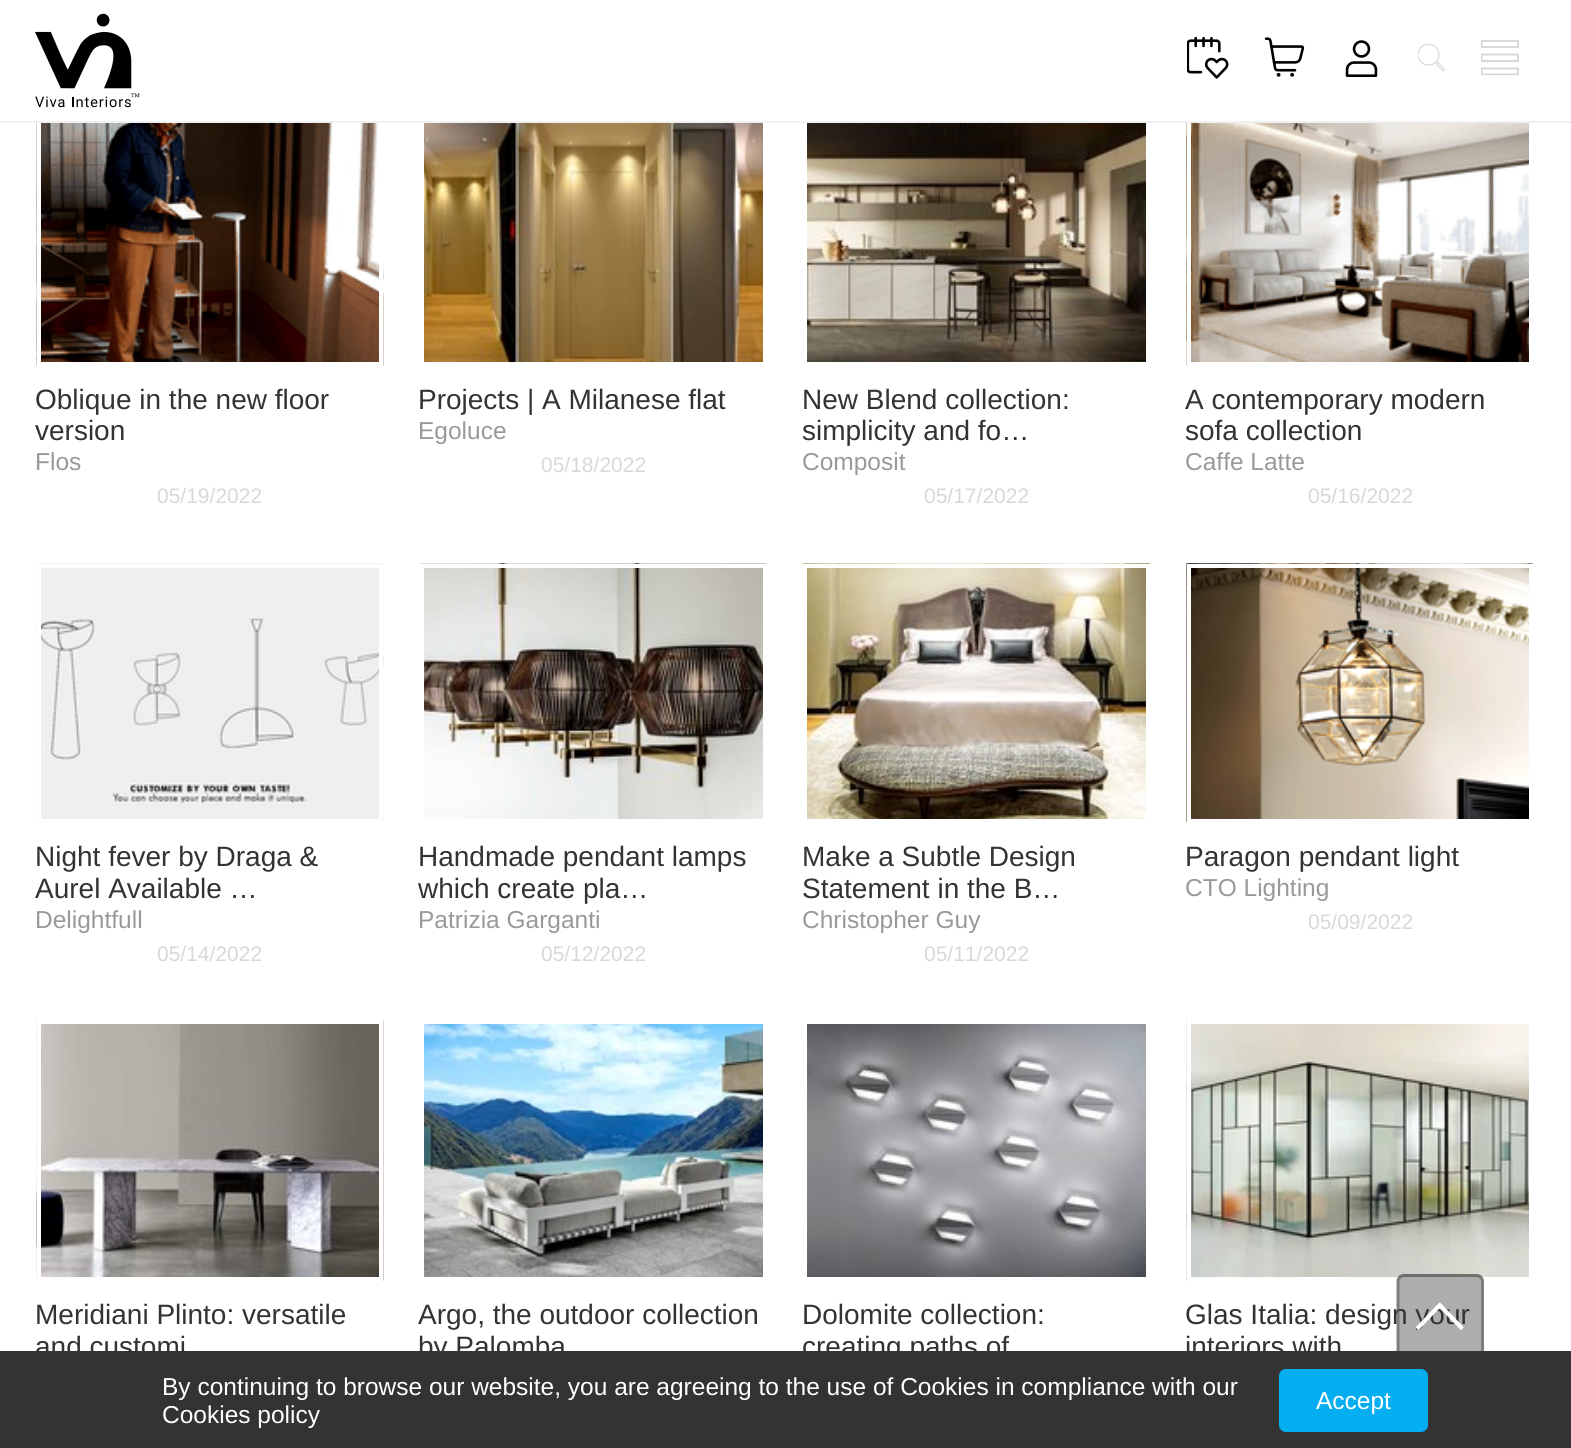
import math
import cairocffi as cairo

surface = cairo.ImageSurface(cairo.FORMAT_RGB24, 1571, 1448)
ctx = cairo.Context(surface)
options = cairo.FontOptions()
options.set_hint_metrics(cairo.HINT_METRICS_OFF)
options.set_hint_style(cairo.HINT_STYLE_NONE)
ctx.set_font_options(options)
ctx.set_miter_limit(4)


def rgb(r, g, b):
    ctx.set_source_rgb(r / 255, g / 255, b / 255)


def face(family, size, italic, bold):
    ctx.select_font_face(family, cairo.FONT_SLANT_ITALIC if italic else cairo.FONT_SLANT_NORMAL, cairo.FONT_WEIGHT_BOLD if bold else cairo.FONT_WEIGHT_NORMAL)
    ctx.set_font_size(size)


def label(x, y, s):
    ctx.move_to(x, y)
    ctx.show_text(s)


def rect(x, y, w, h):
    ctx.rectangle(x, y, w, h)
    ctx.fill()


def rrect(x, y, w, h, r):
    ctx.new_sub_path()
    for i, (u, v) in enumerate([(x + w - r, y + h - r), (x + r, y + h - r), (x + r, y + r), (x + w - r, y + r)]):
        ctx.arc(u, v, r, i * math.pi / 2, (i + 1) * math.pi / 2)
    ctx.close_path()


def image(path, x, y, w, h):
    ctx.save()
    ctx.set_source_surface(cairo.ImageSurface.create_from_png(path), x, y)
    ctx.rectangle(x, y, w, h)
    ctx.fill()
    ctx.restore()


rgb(255, 255, 255)
ctx.paint()
image('image5.png', 36, 123, 348, 243)
ctx.rectangle(39, 107, 342, 257)
rgb(255, 255, 255)
ctx.set_line_width(4)
ctx.stroke()
image('image8.png', 1186, 123, 343, 243)
ctx.rectangle(1189, 107, 342, 257)
ctx.stroke()
rgb(240, 240, 240)
rect(0, 121, 1571, 2)
image('image0.png', 35, 13, 105, 95)
image('image1.png', 1187, 37, 42, 42)
image('image2.png', 1264, 37, 41, 40)
image('image3.png', 1345, 40, 33, 37)
image('image4.png', 1418, 44, 28, 28)
ctx.save()
ctx.rectangle(1481, 40, 38, 35)
ctx.clip()
ctx.new_path()
ctx.move_to(1481.5, 41)
ctx.line_to(1518, 41)
ctx.line_to(1518, 47)
ctx.line_to(1481.5, 47)
ctx.close_path()
ctx.move_to(1481.5, 54.5)
ctx.line_to(1518, 54.5)
ctx.line_to(1518, 61)
ctx.line_to(1481.5, 61)
ctx.close_path()
ctx.move_to(1481.5, 68.5)
ctx.line_to(1518, 68.5)
ctx.line_to(1518, 74.5)
ctx.line_to(1481.5, 74.5)
ctx.close_path()
rgb(213, 213, 213)
ctx.set_line_width(1.8)
ctx.stroke()
ctx.restore()
face('Liberation Sans', 28, 0, 0)
rgb(51, 51, 51)
label(35, 409, 'Oblique in the new floor')
label(35, 440, 'version')
face('Liberation Sans', 24.5, 0, 0)
rgb(153, 153, 153)
label(35, 470, 'Flos')
face('Liberation Sans', 21, 0, 0)
rgb(216, 216, 216)
label(157, 503, '05/19/2022')
image('image6.png', 424, 123, 339, 239)
face('Liberation Sans', 28, 0, 0)
rgb(51, 51, 51)
label(418, 409, 'Projects | A Milanese flat')
face('Liberation Sans', 24.5, 0, 0)
rgb(153, 153, 153)
label(418, 439, 'Egoluce')
face('Liberation Sans', 21, 0, 0)
rgb(216, 216, 216)
label(541, 472, '05/18/2022')
image('image7.png', 807, 123, 339, 239)
face('Liberation Sans', 28, 0, 0)
rgb(51, 51, 51)
label(802, 409, 'New Blend collection:')
label(802, 440, 'simplicity and fo…')
face('Liberation Sans', 24.5, 0, 0)
rgb(153, 153, 153)
label(802, 470, 'Composit')
face('Liberation Sans', 21, 0, 0)
rgb(216, 216, 216)
label(924, 503, '05/17/2022')
face('Liberation Sans', 28, 0, 0)
rgb(51, 51, 51)
label(1185, 409, 'A contemporary modern')
label(1185, 440, 'sofa collection')
face('Liberation Sans', 24.5, 0, 0)
rgb(153, 153, 153)
label(1185, 470, 'Caffe Latte')
face('Liberation Sans', 21, 0, 0)
rgb(216, 216, 216)
label(1308, 503, '05/16/2022')
image('image9.png', 36, 563, 348, 260)
ctx.rectangle(39, 566, 342, 255)
rgb(255, 255, 255)
ctx.stroke()
face('Liberation Sans', 28, 0, 0)
rgb(51, 51, 51)
label(35, 866, 'Night fever by Draga &')
label(35, 898, 'Aurel Available …')
face('Liberation Sans', 24.5, 0, 0)
rgb(153, 153, 153)
label(35, 928, 'Delightfull')
face('Liberation Sans', 21, 0, 0)
rgb(216, 216, 216)
label(157, 961, '05/14/2022')
image('image10.png', 420, 563, 347, 256)
ctx.rectangle(422, 566, 343, 255)
rgb(255, 255, 255)
ctx.stroke()
face('Liberation Sans', 28, 0, 0)
rgb(51, 51, 51)
label(418, 866, 'Handmade pendant lamps')
label(418, 898, 'which create pla…')
face('Liberation Sans', 24.5, 0, 0)
rgb(153, 153, 153)
label(418, 928, 'Patrizia Garganti')
face('Liberation Sans', 21, 0, 0)
rgb(216, 216, 216)
label(541, 961, '05/12/2022')
image('image11.png', 803, 563, 347, 256)
ctx.rectangle(805, 566, 343, 255)
rgb(255, 255, 255)
ctx.stroke()
face('Liberation Sans', 28, 0, 0)
rgb(51, 51, 51)
label(802, 866, 'Make a Subtle Design')
label(802, 898, 'Statement in the B…')
face('Liberation Sans', 24.5, 0, 0)
rgb(153, 153, 153)
label(802, 928, 'Christopher Guy')
face('Liberation Sans', 21, 0, 0)
rgb(216, 216, 216)
label(924, 961, '05/11/2022')
image('image12.png', 1186, 563, 347, 260)
ctx.rectangle(1189, 566, 342, 255)
rgb(255, 255, 255)
ctx.stroke()
face('Liberation Sans', 28, 0, 0)
rgb(51, 51, 51)
label(1185, 866, 'Paragon pendant light')
face('Liberation Sans', 24.5, 0, 0)
rgb(153, 153, 153)
label(1185, 896, 'CTO Lighting')
face('Liberation Sans', 21, 0, 0)
rgb(216, 216, 216)
label(1308, 929, '05/09/2022')
image('image13.png', 36, 1020, 348, 261)
ctx.rectangle(39, 1022, 342, 257)
rgb(255, 255, 255)
ctx.stroke()
face('Liberation Sans', 28, 0, 0)
rgb(51, 51, 51)
label(35, 1324, 'Meridiani Plinto: versatile')
label(35, 1356, 'and customi')
image('image14.png', 424, 1024, 339, 253)
label(418, 1324, 'Argo, the outdoor collection')
label(418, 1356, 'by Palomba')
image('image15.png', 807, 1024, 339, 253)
label(802, 1324, 'Dolomite collection:')
label(802, 1356, 'creating paths of')
image('image16.png', 1186, 1020, 343, 261)
ctx.rectangle(1189, 1022, 342, 257)
rgb(255, 255, 255)
ctx.stroke()
rgb(51, 51, 51)
label(1185, 1324, 'Glas Italia: design your')
label(1185, 1356, 'interiors with')
image('image17.png', 1396, 1274, 88, 77)
rect(0, 1351, 1571, 97)
face('Liberation Sans', 24.5, 0, 0)
rgb(255, 255, 255)
label(162, 1395, 'By continuing to browse our website, you are agreeing to the use of Cookies in compliance with our')
label(162, 1423, 'Cookies policy')
rgb(4, 174, 240)
rrect(1280, 1370, 147, 61, 6)
ctx.fill_preserve()
ctx.set_line_width(2)
ctx.stroke()
rgb(255, 255, 255)
label(1316, 1409, 'Accept')
surface.write_to_png('render.png')
